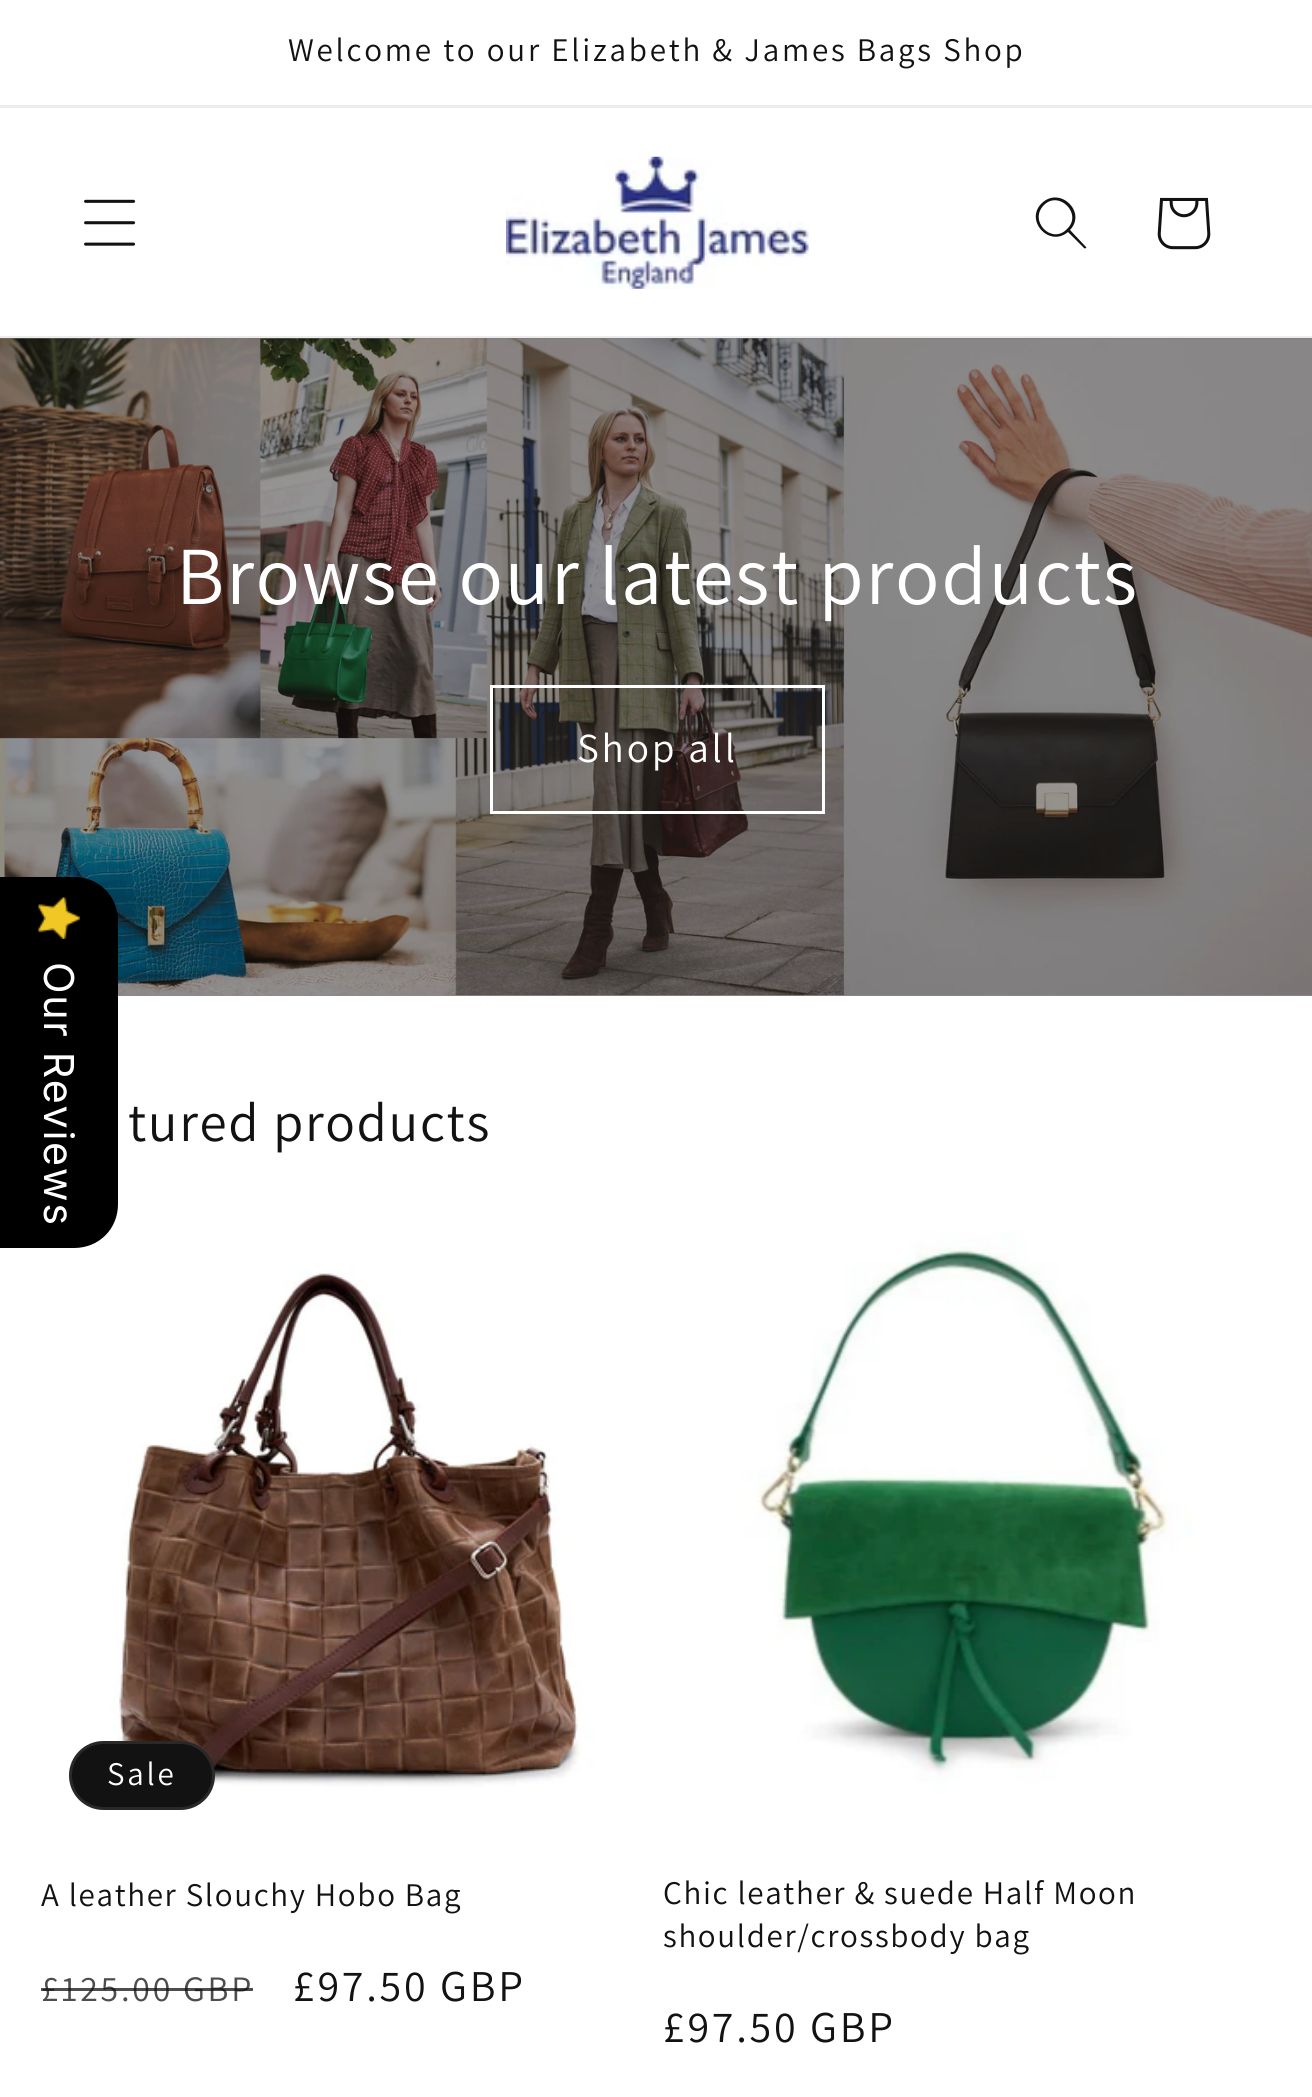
import math
import cairocffi as cairo

surface = cairo.ImageSurface(cairo.FORMAT_RGB24, 1312, 2097)
ctx = cairo.Context(surface)
options = cairo.FontOptions()
options.set_hint_metrics(cairo.HINT_METRICS_OFF)
options.set_hint_style(cairo.HINT_STYLE_NONE)
ctx.set_font_options(options)
ctx.set_miter_limit(4)


def rgb(r, g, b):
    ctx.set_source_rgb(r / 255, g / 255, b / 255)


def face(family, size, italic, bold):
    ctx.select_font_face(family, cairo.FONT_SLANT_ITALIC if italic else cairo.FONT_SLANT_NORMAL, cairo.FONT_WEIGHT_BOLD if bold else cairo.FONT_WEIGHT_NORMAL)
    ctx.set_font_size(size)


def tracked(x, y, s, letter, word):
    ctx.move_to(x, y)
    for ch in s:
        ctx.show_text(ch)
        ctx.rel_move_to(letter + word * (ch == ' '), 0)


def rect(x, y, w, h):
    ctx.rectangle(x, y, w, h)
    ctx.fill()


def rrect(x, y, w, h, r):
    ctx.new_sub_path()
    for i, (u, v) in enumerate([(x + w - r, y + h - r), (x + r, y + h - r), (x + r, y + r), (x + w - r, y + r)]):
        ctx.arc(u, v, r, i * math.pi / 2, (i + 1) * math.pi / 2)
    ctx.close_path()


def image(path, x, y, w, h):
    ctx.save()
    ctx.set_source_surface(cairo.ImageSurface.create_from_png(path), x, y)
    ctx.rectangle(x, y, w, h)
    ctx.fill()
    ctx.restore()


rgb(255, 255, 255)
ctx.paint()
rgb(236, 236, 236)
rect(0, 105, 1312, 3)
face('Assistant', 33, 0, 0)
rgb(18, 18, 18)
tracked(288, 61, 'Welcome to our Elizabeth & James Bags Shop', 2.75, 0)
rgb(139, 139, 139)
rect(0, 338, 1312, 658)
image('image3.png', 0, 338, 1312, 658)
ctx.set_source_rgba(0.071, 0.071, 0.071, 0.08)
rect(0, 336, 1312, 3)
image('image0.png', 84, 199, 52, 47)
image('image1.png', 506, 156, 303, 133)
rgb(18, 18, 18)
ctx.set_fill_rule(cairo.FILL_RULE_EVEN_ODD)
ctx.new_path()
ctx.move_to(1067, 229)
ctx.curve_to(1052, 245, 1028, 221, 1044, 205)
ctx.curve_to(1059, 190, 1083, 214, 1067, 229)
ctx.move_to(1068, 232)
ctx.curve_to(1049, 248, 1024, 220, 1042, 203)
ctx.curve_to(1060, 186, 1087, 212, 1070, 230)
ctx.line_to(1086, 247)
ctx.curve_to(1087, 248, 1085, 249, 1084, 248)
ctx.close_path()
ctx.fill()
image('image2.png', 1157, 197, 54, 53)
face('Assistant', 82.5, 0, 0)
rgb(255, 255, 255)
tracked(176, 604, 'Browse our latest products', 1.65, 0)
ctx.rectangle(491.5, 686.5, 332, 126)
ctx.set_line_width(3)
ctx.stroke()
face('Assistant', 41.25, 0, 0)
tracked(577, 762, 'Shop all', 2.75, 0)
face('Assistant', 55, 0, 0)
rgb(18, 18, 18)
tracked(128, 1141, 'tured products', 1.65, 0)
image('image4.png', 41, 1227, 611, 610)
rrect(69, 1741, 146, 69, 34.5)
ctx.fill()
rrect(70.5, 1742.5, 143, 66, 33)
ctx.set_source_rgba(1, 1, 1, 0.1)
ctx.stroke()
face('Assistant', 33, 0, 0)
rgb(255, 255, 255)
tracked(107, 1785, 'Sale', 2.75, 0)
rgb(18, 18, 18)
tracked(41, 1906, 'A leather Slouchy Hobo Bag', 1.65, 0)
face('Assistant', 35.75, 0, 0)
rgb(77, 77, 77)
tracked(41, 2001, '£125.00 GBP', 2.75, 0)
ctx.set_source_rgba(0.071, 0.071, 0.071, 0.75)
rect(41, 1988, 212, 3)
face('Assistant', 44, 0, 0)
rgb(18, 18, 18)
tracked(293, 2001, '£97.50 GBP', 2.75, 0)
image('image5.png', 663, 1227, 610, 607)
face('Assistant', 33, 0, 0)
tracked(663, 1904, 'Chic leather & suede Half Moon', 1.65, 0)
tracked(663, 1947, 'shoulder/crossbody bag', 1.65, 0)
face('Assistant', 44, 0, 0)
tracked(663, 2042, '£97.50 GBP', 2.75, 0)
rgb(0, 0, 0)
ctx.set_fill_rule(cairo.FILL_RULE_WINDING)
ctx.new_path()
ctx.move_to(118, 921)
ctx.line_to(118, 1204)
ctx.curve_to(118, 1229, 99, 1248, 74, 1248)
ctx.line_to(0, 1248)
ctx.line_to(0, 877)
ctx.line_to(74, 877)
ctx.curve_to(99, 877, 118, 896, 118, 921)
ctx.close_path()
ctx.fill()
image('image6.png', 38, 897, 42, 42)
face('Inter', 41.25, 0, 0)
rgb(255, 255, 255)
ctx.save()
ctx.translate(44, 962)
ctx.rotate(90 * math.pi / 180)
tracked(0, 0, 'Our Reviews', 1.65, 0)
ctx.restore()
surface.write_to_png('render.png')
